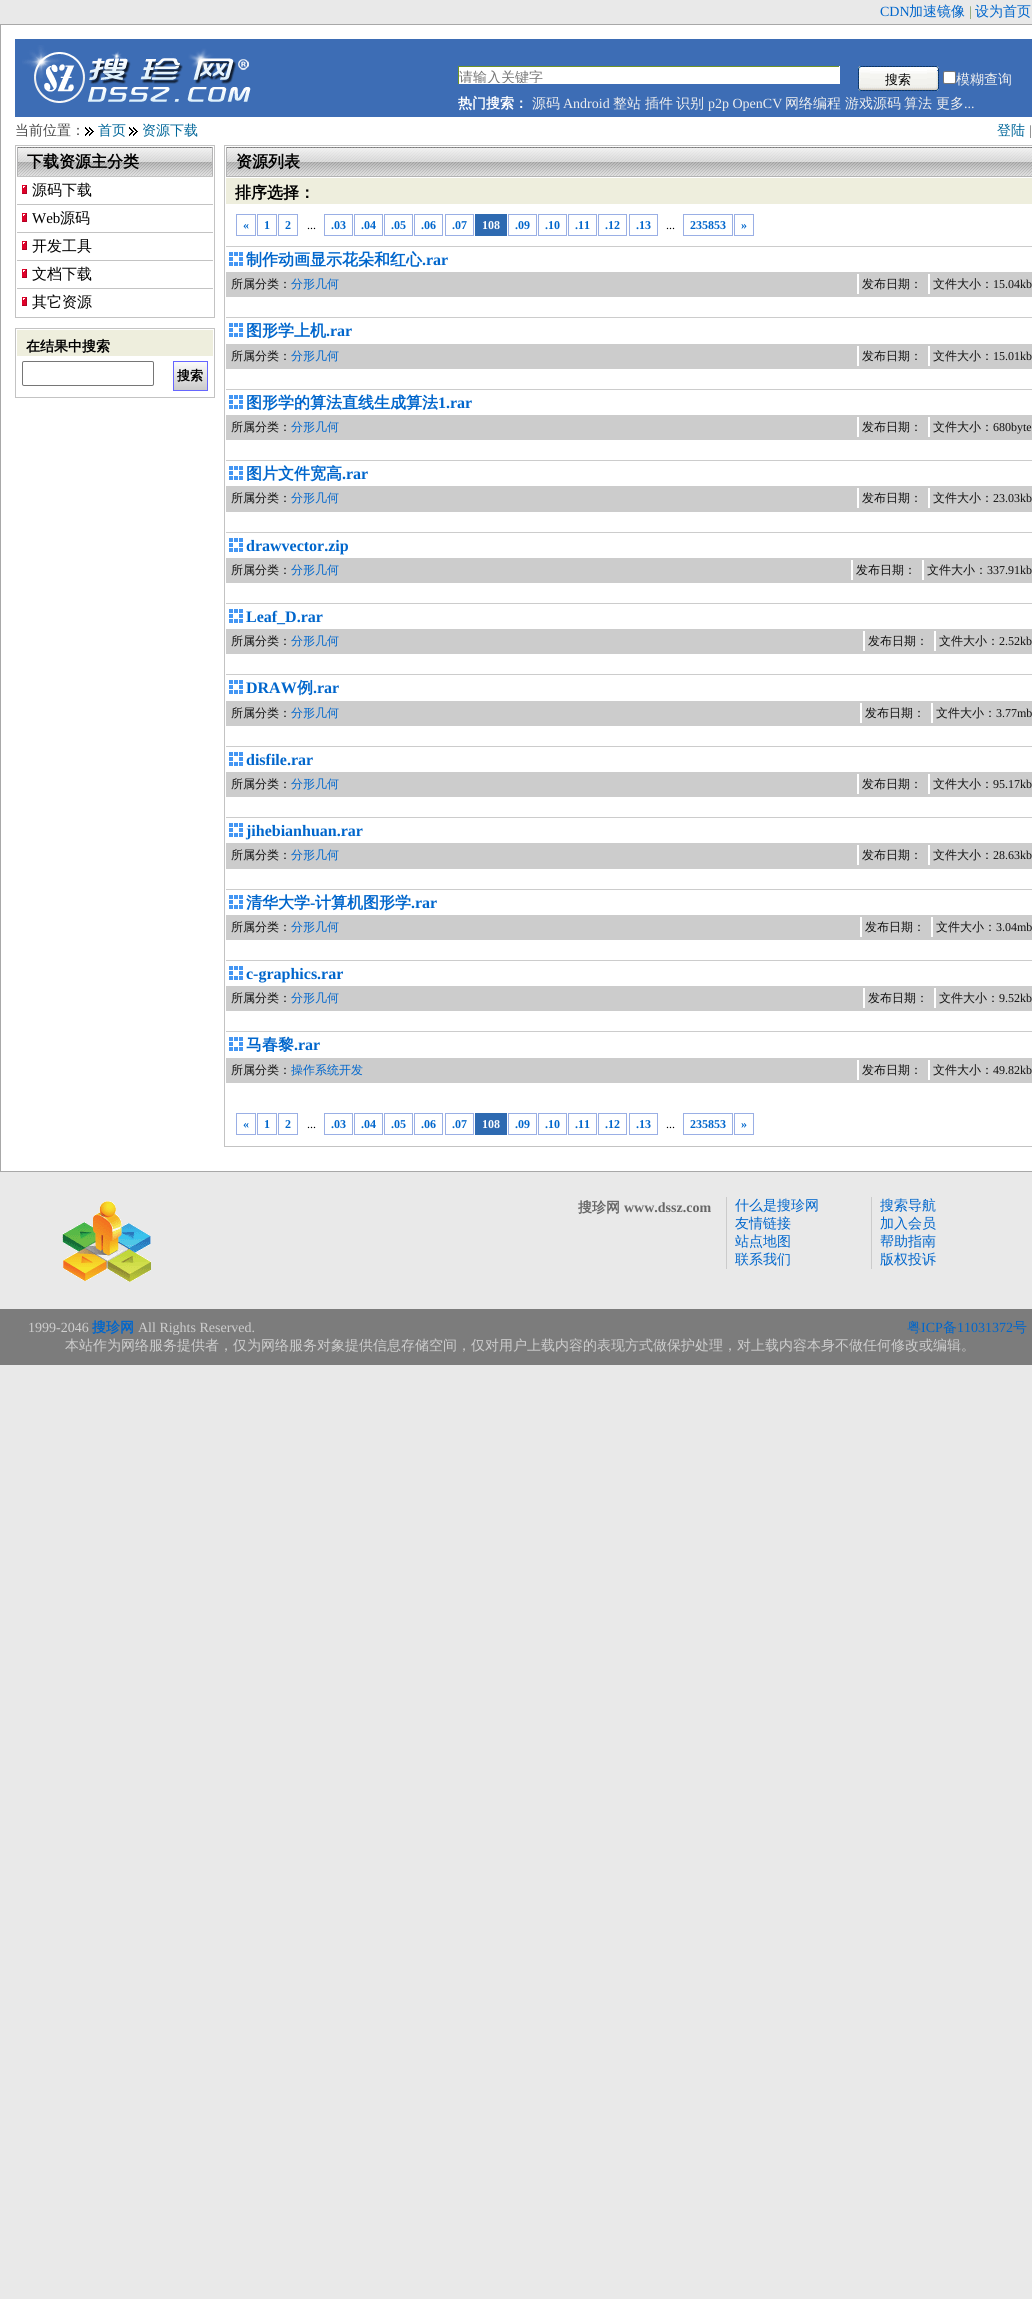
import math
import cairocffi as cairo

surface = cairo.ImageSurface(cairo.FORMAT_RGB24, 1032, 2299)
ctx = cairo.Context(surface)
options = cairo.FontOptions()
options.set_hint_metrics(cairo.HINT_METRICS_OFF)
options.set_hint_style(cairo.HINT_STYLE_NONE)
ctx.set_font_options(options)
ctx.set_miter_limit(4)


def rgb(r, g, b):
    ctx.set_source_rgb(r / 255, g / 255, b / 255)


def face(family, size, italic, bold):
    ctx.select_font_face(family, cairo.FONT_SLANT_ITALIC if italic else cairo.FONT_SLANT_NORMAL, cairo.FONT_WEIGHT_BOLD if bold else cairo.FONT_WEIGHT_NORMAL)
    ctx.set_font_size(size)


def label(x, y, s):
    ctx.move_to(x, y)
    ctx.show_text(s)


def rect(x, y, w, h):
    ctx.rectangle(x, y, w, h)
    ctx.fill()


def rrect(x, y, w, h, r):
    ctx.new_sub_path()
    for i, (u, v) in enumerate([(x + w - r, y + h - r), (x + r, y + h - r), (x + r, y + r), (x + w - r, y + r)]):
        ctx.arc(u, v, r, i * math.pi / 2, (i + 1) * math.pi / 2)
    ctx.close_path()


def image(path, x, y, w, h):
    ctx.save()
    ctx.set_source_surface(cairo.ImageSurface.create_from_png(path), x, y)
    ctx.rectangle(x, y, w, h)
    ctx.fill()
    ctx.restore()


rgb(233, 233, 233)
ctx.paint()
face('Liberation Serif', 14, 0, 0)
rgb(0, 102, 204)
label(880, 16, 'CDN')
face('WenQuanYi Zen Hei Medium', 14, 0, 0)
label(909, 16, '加速镜像')
face('Liberation Serif', 14, 0, 0)
rgb(117, 149, 84)
label(969, 16, '|')
face('WenQuanYi Zen Hei Medium', 14, 0, 0)
rgb(0, 102, 204)
label(975, 16, '设为首页')
rgb(255, 255, 255)
ctx.rectangle(0.5, 24.5, 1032, 1147)
ctx.fill_preserve()
rgb(168, 168, 168)
ctx.set_line_width(1)
ctx.stroke()
rgb(61, 109, 181)
rect(15, 39, 1017, 78)
image('image0.png', 22, 45, 229, 58)
rgb(255, 255, 255)
rect(459, 67, 380, 17)
rgb(111, 148, 38)
rect(458, 66, 382, 1)
rgb(255, 255, 255)
rect(839, 66, 1, 18)
rgb(111, 148, 38)
rect(458, 66, 1, 18)
ctx.save()
ctx.rectangle(459, 69, 380, 14)
ctx.clip()
rgb(117, 117, 117)
label(459, 82, '请输入关键字')
ctx.restore()
image('image1.png', 858, 66, 81, 25)
face('WenQuanYi Zen Hei Medium', 13, 0, 0)
rgb(0, 0, 0)
label(885, 84, '搜索')
rgb(255, 255, 255)
rrect(943.5, 71.5, 12, 12, 1.5)
ctx.fill_preserve()
rgb(118, 118, 118)
ctx.stroke()
face('WenQuanYi Zen Hei Medium', 14, 0, 0)
rgb(238, 238, 238)
label(956, 84, '模糊查询')
face('WenQuanYi Zen Hei', 14, 0, 1)
rgb(255, 255, 255)
label(458, 108, '热门搜索：')
face('WenQuanYi Zen Hei Medium', 14, 0, 0)
rgb(238, 238, 238)
label(532, 108, '源码')
face('Liberation Serif', 14, 0, 0)
label(563, 108, 'Android')
face('WenQuanYi Zen Hei Medium', 14, 0, 0)
label(613, 108, '整站')
label(645, 108, '插件')
label(676, 108, '识别')
face('Liberation Serif', 14, 0, 0)
label(708, 108, 'p2p OpenCV')
face('WenQuanYi Zen Hei Medium', 14, 0, 0)
label(785, 108, '网络编程')
label(845, 108, '游戏源码')
label(904, 108, '算法')
label(936, 108, '更多')
face('Liberation Serif', 14, 0, 0)
label(964, 108, '...')
face('WenQuanYi Zen Hei Medium', 14, 0, 0)
rgb(74, 74, 74)
label(15, 135, '当前位置：')
image('image2.png', 85, 127, 9, 9)
rgb(0, 102, 153)
label(98, 135, '首页')
image('image2.png', 129, 127, 9, 9)
label(142, 135, '资源下载')
label(997, 135, '登陆')
face('Liberation Serif', 14, 0, 0)
rgb(102, 102, 102)
label(1029, 135, '|')
ctx.rectangle(15.5, 145.5, 199, 172)
rgb(195, 195, 195)
ctx.stroke()
image('image3.png', 18, 147, 194, 29)
rgb(180, 180, 181)
rect(212, 147, 1, 30)
rect(17, 147, 1, 30)
face('WenQuanYi Zen Hei', 16, 0, 1)
rgb(0, 0, 0)
label(27, 167, '下载资源主分类')
image('image4.png', 22, 185, 5, 9)
rgb(195, 195, 195)
rect(17, 176, 196, 1)
face('WenQuanYi Zen Hei Medium', 15, 0, 0)
rgb(0, 0, 0)
label(32, 195, '源码下载')
image('image4.png', 22, 213, 5, 9)
rgb(195, 195, 195)
rect(17, 204, 196, 1)
face('Liberation Serif', 15, 0, 0)
rgb(0, 0, 0)
label(32, 223, 'Web')
face('WenQuanYi Zen Hei Medium', 15, 0, 0)
label(60, 223, '源码')
image('image4.png', 22, 241, 5, 9)
rgb(195, 195, 195)
rect(17, 232, 196, 1)
rgb(0, 0, 0)
label(32, 251, '开发工具')
image('image4.png', 22, 269, 5, 9)
rgb(195, 195, 195)
rect(17, 260, 196, 1)
rgb(0, 0, 0)
label(32, 279, '文档下载')
image('image4.png', 22, 297, 5, 9)
rgb(195, 195, 195)
rect(17, 288, 196, 1)
rgb(0, 0, 0)
label(32, 307, '其它资源')
ctx.rectangle(15.5, 328.5, 199, 69)
rgb(195, 195, 195)
ctx.stroke()
rgb(238, 238, 221)
rect(17, 330, 196, 26)
face('WenQuanYi Zen Hei', 14, 0, 1)
rgb(0, 0, 0)
label(26, 351, '在结果中搜索')
rrect(22.5, 361.5, 131, 24, 1.5)
rgb(118, 118, 118)
ctx.stroke()
image('image5.png', 174, 362, 33, 28)
ctx.rectangle(173.5, 361.5, 34, 29)
rgb(102, 102, 255)
ctx.stroke()
face('WenQuanYi Zen Hei', 13, 0, 1)
rgb(0, 0, 0)
label(177, 380, '搜索')
ctx.rectangle(224.5, 145.5, 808, 1001)
rgb(195, 195, 195)
ctx.stroke()
image('image6.png', 227, 147, 805, 29)
rgb(180, 180, 181)
rect(226, 176, 806, 1)
rect(226, 147, 1, 30)
face('WenQuanYi Zen Hei', 16, 0, 1)
rgb(0, 0, 0)
label(236, 167, '资源列表')
rgb(238, 238, 221)
rect(226, 178, 806, 26)
rgb(0, 0, 0)
label(235, 198, '排序选择：')
ctx.rectangle(236.5, 214.5, 19, 21)
rgb(154, 175, 229)
ctx.stroke()
face('Liberation Serif', 12, 0, 1)
rgb(0, 102, 204)
label(243, 229, '«')
ctx.rectangle(257.5, 214.5, 19, 21)
rgb(154, 175, 229)
ctx.stroke()
rgb(0, 102, 204)
label(264, 229, '1')
ctx.rectangle(278.5, 214.5, 19, 21)
rgb(154, 175, 229)
ctx.stroke()
rgb(0, 102, 204)
label(285, 229, '2')
face('Liberation Serif', 12, 0, 0)
rgb(0, 0, 0)
label(307, 229, '...')
ctx.rectangle(324.5, 214.5, 28, 21)
rgb(154, 175, 229)
ctx.stroke()
face('Liberation Serif', 12, 0, 1)
rgb(0, 102, 204)
label(331, 229, '.03')
ctx.rectangle(354.5, 214.5, 28, 21)
rgb(154, 175, 229)
ctx.stroke()
rgb(0, 102, 204)
label(361, 229, '.04')
ctx.rectangle(384.5, 214.5, 28, 21)
rgb(154, 175, 229)
ctx.stroke()
rgb(0, 102, 204)
label(391, 229, '.05')
ctx.rectangle(414.5, 214.5, 28, 21)
rgb(154, 175, 229)
ctx.stroke()
rgb(0, 102, 204)
label(421, 229, '.06')
ctx.rectangle(445.5, 214.5, 28, 21)
rgb(154, 175, 229)
ctx.stroke()
rgb(0, 102, 204)
label(452, 229, '.07')
rgb(46, 106, 177)
rect(475, 214, 32, 22)
rgb(255, 255, 255)
label(482, 229, '108')
ctx.rectangle(508.5, 214.5, 28, 21)
rgb(154, 175, 229)
ctx.stroke()
rgb(0, 102, 204)
label(515, 229, '.09')
ctx.rectangle(538.5, 214.5, 28, 21)
rgb(154, 175, 229)
ctx.stroke()
rgb(0, 102, 204)
label(545, 229, '.10')
ctx.rectangle(568.5, 214.5, 28, 21)
rgb(154, 175, 229)
ctx.stroke()
rgb(0, 102, 204)
label(575, 229, '.11')
ctx.rectangle(598.5, 214.5, 28, 21)
rgb(154, 175, 229)
ctx.stroke()
rgb(0, 102, 204)
label(605, 229, '.12')
ctx.rectangle(629.5, 214.5, 28, 21)
rgb(154, 175, 229)
ctx.stroke()
rgb(0, 102, 204)
label(636, 229, '.13')
face('Liberation Serif', 12, 0, 0)
rgb(0, 0, 0)
label(666, 229, '...')
ctx.rectangle(683.5, 214.5, 49, 21)
rgb(154, 175, 229)
ctx.stroke()
face('Liberation Serif', 12, 0, 1)
rgb(0, 102, 204)
label(690, 229, '235853')
ctx.rectangle(734.5, 214.5, 19, 21)
rgb(154, 175, 229)
ctx.stroke()
rgb(0, 102, 204)
label(741, 229, '»')
rgb(204, 204, 204)
rect(226, 246, 806, 1)
image('image7.png', 229, 252, 14, 14)
face('WenQuanYi Zen Hei', 16, 0, 1)
rgb(0, 102, 204)
label(246, 265, '制作动画显示花朵和红心')
face('Liberation Serif', 16, 0, 1)
label(422, 265, '.rar')
rgb(204, 204, 204)
rect(226, 272, 806, 25)
face('WenQuanYi Zen Hei Medium', 12, 0, 0)
rgb(17, 17, 17)
label(231, 288, '所属分类：')
rgb(0, 102, 204)
label(291, 288, '分形几何')
rgb(17, 17, 17)
label(862, 288, '发布日期：')
rgb(255, 255, 255)
rect(857, 274, 2, 20)
rgb(17, 17, 17)
label(933, 288, '文件大小：')
rgb(255, 255, 255)
rect(928, 274, 2, 20)
face('Liberation Serif', 12, 0, 0)
rgb(17, 17, 17)
label(993, 288, '15.04kb')
rgb(204, 204, 204)
rect(226, 317, 806, 1)
image('image7.png', 229, 323, 14, 14)
face('WenQuanYi Zen Hei', 16, 0, 1)
rgb(0, 102, 204)
label(246, 336, '图形学上机')
face('Liberation Serif', 16, 0, 1)
label(326, 336, '.rar')
rgb(204, 204, 204)
rect(226, 344, 806, 25)
face('WenQuanYi Zen Hei Medium', 12, 0, 0)
rgb(17, 17, 17)
label(231, 360, '所属分类：')
rgb(0, 102, 204)
label(291, 360, '分形几何')
rgb(17, 17, 17)
label(862, 360, '发布日期：')
rgb(255, 255, 255)
rect(857, 346, 2, 20)
rgb(17, 17, 17)
label(933, 360, '文件大小：')
rgb(255, 255, 255)
rect(928, 346, 2, 20)
face('Liberation Serif', 12, 0, 0)
rgb(17, 17, 17)
label(993, 360, '15.01kb')
rgb(204, 204, 204)
rect(226, 389, 806, 1)
image('image7.png', 229, 395, 14, 14)
face('WenQuanYi Zen Hei', 16, 0, 1)
rgb(0, 102, 204)
label(246, 408, '图形学的算法直线生成算法')
face('Liberation Serif', 16, 0, 1)
label(438, 408, '1.rar')
rgb(204, 204, 204)
rect(226, 415, 806, 25)
face('WenQuanYi Zen Hei Medium', 12, 0, 0)
rgb(17, 17, 17)
label(231, 431, '所属分类：')
rgb(0, 102, 204)
label(291, 431, '分形几何')
rgb(17, 17, 17)
label(862, 431, '发布日期：')
rgb(255, 255, 255)
rect(857, 417, 2, 20)
rgb(17, 17, 17)
label(933, 431, '文件大小：')
rgb(255, 255, 255)
rect(928, 417, 2, 20)
face('Liberation Serif', 12, 0, 0)
rgb(17, 17, 17)
label(993, 431, '680byte')
rgb(204, 204, 204)
rect(226, 460, 806, 1)
image('image7.png', 229, 466, 14, 14)
face('WenQuanYi Zen Hei', 16, 0, 1)
rgb(0, 102, 204)
label(246, 479, '图片文件宽高')
face('Liberation Serif', 16, 0, 1)
label(342, 479, '.rar')
rgb(204, 204, 204)
rect(226, 486, 806, 26)
face('WenQuanYi Zen Hei Medium', 12, 0, 0)
rgb(17, 17, 17)
label(231, 502, '所属分类：')
rgb(0, 102, 204)
label(291, 502, '分形几何')
rgb(17, 17, 17)
label(862, 502, '发布日期：')
rgb(255, 255, 255)
rect(857, 488, 2, 20)
rgb(17, 17, 17)
label(933, 502, '文件大小：')
rgb(255, 255, 255)
rect(928, 488, 2, 20)
face('Liberation Serif', 12, 0, 0)
rgb(17, 17, 17)
label(993, 502, '23.03kb')
rgb(204, 204, 204)
rect(226, 532, 806, 1)
image('image7.png', 229, 538, 14, 14)
face('Liberation Serif', 16, 0, 1)
rgb(0, 102, 204)
label(246, 551, 'drawvector.zip')
rgb(204, 204, 204)
rect(226, 558, 806, 25)
face('WenQuanYi Zen Hei Medium', 12, 0, 0)
rgb(17, 17, 17)
label(231, 574, '所属分类：')
rgb(0, 102, 204)
label(291, 574, '分形几何')
rgb(17, 17, 17)
label(856, 574, '发布日期：')
rgb(255, 255, 255)
rect(851, 560, 2, 20)
rgb(17, 17, 17)
label(927, 574, '文件大小：')
rgb(255, 255, 255)
rect(922, 560, 2, 20)
face('Liberation Serif', 12, 0, 0)
rgb(17, 17, 17)
label(987, 574, '337.91kb')
rgb(204, 204, 204)
rect(226, 603, 806, 1)
image('image7.png', 229, 609, 14, 14)
face('Liberation Serif', 16, 0, 1)
rgb(0, 102, 204)
label(246, 622, 'Leaf_D.rar')
rgb(204, 204, 204)
rect(226, 629, 806, 25)
face('WenQuanYi Zen Hei Medium', 12, 0, 0)
rgb(17, 17, 17)
label(231, 645, '所属分类：')
rgb(0, 102, 204)
label(291, 645, '分形几何')
rgb(17, 17, 17)
label(868, 645, '发布日期：')
rgb(255, 255, 255)
rect(863, 631, 2, 20)
rgb(17, 17, 17)
label(939, 645, '文件大小：')
rgb(255, 255, 255)
rect(934, 631, 2, 20)
face('Liberation Serif', 12, 0, 0)
rgb(17, 17, 17)
label(999, 645, '2.52kb')
rgb(204, 204, 204)
rect(226, 674, 806, 1)
image('image7.png', 229, 680, 14, 14)
face('Liberation Serif', 16, 0, 1)
rgb(0, 102, 204)
label(246, 693, 'DRAW')
face('WenQuanYi Zen Hei', 16, 0, 1)
label(297, 693, '例')
face('Liberation Serif', 16, 0, 1)
label(313, 693, '.rar')
rgb(204, 204, 204)
rect(226, 701, 806, 25)
face('WenQuanYi Zen Hei Medium', 12, 0, 0)
rgb(17, 17, 17)
label(231, 717, '所属分类：')
rgb(0, 102, 204)
label(291, 717, '分形几何')
rgb(17, 17, 17)
label(865, 717, '发布日期：')
rgb(255, 255, 255)
rect(860, 703, 2, 20)
rgb(17, 17, 17)
label(936, 717, '文件大小：')
rgb(255, 255, 255)
rect(931, 703, 2, 20)
face('Liberation Serif', 12, 0, 0)
rgb(17, 17, 17)
label(996, 717, '3.77mb')
rgb(204, 204, 204)
rect(226, 746, 806, 1)
image('image7.png', 229, 752, 14, 14)
face('Liberation Serif', 16, 0, 1)
rgb(0, 102, 204)
label(246, 765, 'disfile.rar')
rgb(204, 204, 204)
rect(226, 772, 806, 25)
face('WenQuanYi Zen Hei Medium', 12, 0, 0)
rgb(17, 17, 17)
label(231, 788, '所属分类：')
rgb(0, 102, 204)
label(291, 788, '分形几何')
rgb(17, 17, 17)
label(862, 788, '发布日期：')
rgb(255, 255, 255)
rect(857, 774, 2, 20)
rgb(17, 17, 17)
label(933, 788, '文件大小：')
rgb(255, 255, 255)
rect(928, 774, 2, 20)
face('Liberation Serif', 12, 0, 0)
rgb(17, 17, 17)
label(993, 788, '95.17kb')
rgb(204, 204, 204)
rect(226, 817, 806, 1)
image('image7.png', 229, 823, 14, 14)
face('Liberation Serif', 16, 0, 1)
rgb(0, 102, 204)
label(246, 836, 'jihebianhuan.rar')
rgb(204, 204, 204)
rect(226, 843, 806, 26)
face('WenQuanYi Zen Hei Medium', 12, 0, 0)
rgb(17, 17, 17)
label(231, 859, '所属分类：')
rgb(0, 102, 204)
label(291, 859, '分形几何')
rgb(17, 17, 17)
label(862, 859, '发布日期：')
rgb(255, 255, 255)
rect(857, 845, 2, 20)
rgb(17, 17, 17)
label(933, 859, '文件大小：')
rgb(255, 255, 255)
rect(928, 845, 2, 20)
face('Liberation Serif', 12, 0, 0)
rgb(17, 17, 17)
label(993, 859, '28.63kb')
rgb(204, 204, 204)
rect(226, 889, 806, 1)
image('image7.png', 229, 895, 14, 14)
face('WenQuanYi Zen Hei', 16, 0, 1)
rgb(0, 102, 204)
label(246, 908, '清华大学')
face('Liberation Serif', 16, 0, 1)
label(310, 908, '-')
face('WenQuanYi Zen Hei', 16, 0, 1)
label(315, 908, '计算机图形学')
face('Liberation Serif', 16, 0, 1)
label(411, 908, '.rar')
rgb(204, 204, 204)
rect(226, 915, 806, 25)
face('WenQuanYi Zen Hei Medium', 12, 0, 0)
rgb(17, 17, 17)
label(231, 931, '所属分类：')
rgb(0, 102, 204)
label(291, 931, '分形几何')
rgb(17, 17, 17)
label(865, 931, '发布日期：')
rgb(255, 255, 255)
rect(860, 917, 2, 20)
rgb(17, 17, 17)
label(936, 931, '文件大小：')
rgb(255, 255, 255)
rect(931, 917, 2, 20)
face('Liberation Serif', 12, 0, 0)
rgb(17, 17, 17)
label(996, 931, '3.04mb')
rgb(204, 204, 204)
rect(226, 960, 806, 1)
image('image7.png', 229, 966, 14, 14)
face('Liberation Serif', 16, 0, 1)
rgb(0, 102, 204)
label(246, 979, 'c-graphics.rar')
rgb(204, 204, 204)
rect(226, 986, 806, 25)
face('WenQuanYi Zen Hei Medium', 12, 0, 0)
rgb(17, 17, 17)
label(231, 1002, '所属分类：')
rgb(0, 102, 204)
label(291, 1002, '分形几何')
rgb(17, 17, 17)
label(868, 1002, '发布日期：')
rgb(255, 255, 255)
rect(863, 988, 2, 20)
rgb(17, 17, 17)
label(939, 1002, '文件大小：')
rgb(255, 255, 255)
rect(934, 988, 2, 20)
face('Liberation Serif', 12, 0, 0)
rgb(17, 17, 17)
label(999, 1002, '9.52kb')
rgb(204, 204, 204)
rect(226, 1031, 806, 1)
image('image7.png', 229, 1037, 14, 14)
face('WenQuanYi Zen Hei', 16, 0, 1)
rgb(0, 102, 204)
label(246, 1050, '马春黎')
face('Liberation Serif', 16, 0, 1)
label(294, 1050, '.rar')
rgb(204, 204, 204)
rect(226, 1058, 806, 25)
face('WenQuanYi Zen Hei Medium', 12, 0, 0)
rgb(17, 17, 17)
label(231, 1074, '所属分类：')
rgb(0, 102, 204)
label(291, 1074, '操作系统开发')
rgb(17, 17, 17)
label(862, 1074, '发布日期：')
rgb(255, 255, 255)
rect(857, 1060, 2, 20)
rgb(17, 17, 17)
label(933, 1074, '文件大小：')
rgb(255, 255, 255)
rect(928, 1060, 2, 20)
face('Liberation Serif', 12, 0, 0)
rgb(17, 17, 17)
label(993, 1074, '49.82kb')
ctx.rectangle(236.5, 1113.5, 19, 21)
rgb(154, 175, 229)
ctx.stroke()
face('Liberation Serif', 12, 0, 1)
rgb(0, 102, 204)
label(243, 1128, '«')
ctx.rectangle(257.5, 1113.5, 19, 21)
rgb(154, 175, 229)
ctx.stroke()
rgb(0, 102, 204)
label(264, 1128, '1')
ctx.rectangle(278.5, 1113.5, 19, 21)
rgb(154, 175, 229)
ctx.stroke()
rgb(0, 102, 204)
label(285, 1128, '2')
face('Liberation Serif', 12, 0, 0)
rgb(0, 0, 0)
label(307, 1128, '...')
ctx.rectangle(324.5, 1113.5, 28, 21)
rgb(154, 175, 229)
ctx.stroke()
face('Liberation Serif', 12, 0, 1)
rgb(0, 102, 204)
label(331, 1128, '.03')
ctx.rectangle(354.5, 1113.5, 28, 21)
rgb(154, 175, 229)
ctx.stroke()
rgb(0, 102, 204)
label(361, 1128, '.04')
ctx.rectangle(384.5, 1113.5, 28, 21)
rgb(154, 175, 229)
ctx.stroke()
rgb(0, 102, 204)
label(391, 1128, '.05')
ctx.rectangle(414.5, 1113.5, 28, 21)
rgb(154, 175, 229)
ctx.stroke()
rgb(0, 102, 204)
label(421, 1128, '.06')
ctx.rectangle(445.5, 1113.5, 28, 21)
rgb(154, 175, 229)
ctx.stroke()
rgb(0, 102, 204)
label(452, 1128, '.07')
rgb(46, 106, 177)
rect(475, 1113, 32, 22)
rgb(255, 255, 255)
label(482, 1128, '108')
ctx.rectangle(508.5, 1113.5, 28, 21)
rgb(154, 175, 229)
ctx.stroke()
rgb(0, 102, 204)
label(515, 1128, '.09')
ctx.rectangle(538.5, 1113.5, 28, 21)
rgb(154, 175, 229)
ctx.stroke()
rgb(0, 102, 204)
label(545, 1128, '.10')
ctx.rectangle(568.5, 1113.5, 28, 21)
rgb(154, 175, 229)
ctx.stroke()
rgb(0, 102, 204)
label(575, 1128, '.11')
ctx.rectangle(598.5, 1113.5, 28, 21)
rgb(154, 175, 229)
ctx.stroke()
rgb(0, 102, 204)
label(605, 1128, '.12')
ctx.rectangle(629.5, 1113.5, 28, 21)
rgb(154, 175, 229)
ctx.stroke()
rgb(0, 102, 204)
label(636, 1128, '.13')
face('Liberation Serif', 12, 0, 0)
rgb(0, 0, 0)
label(666, 1128, '...')
ctx.rectangle(683.5, 1113.5, 49, 21)
rgb(154, 175, 229)
ctx.stroke()
face('Liberation Serif', 12, 0, 1)
rgb(0, 102, 204)
label(690, 1128, '235853')
ctx.rectangle(734.5, 1113.5, 19, 21)
rgb(154, 175, 229)
ctx.stroke()
rgb(0, 102, 204)
label(741, 1128, '»')
image('image8.png', 62, 1201, 89, 81)
face('WenQuanYi Zen Hei', 14, 0, 1)
rgb(102, 102, 102)
label(578, 1212, '搜珍网')
face('Liberation Serif', 14, 0, 1)
label(624, 1212, 'www.dssz.com')
rgb(203, 203, 203)
rect(726, 1197, 1, 72)
face('WenQuanYi Zen Hei Medium', 14, 0, 0)
rgb(0, 102, 204)
label(735, 1210, '什么是搜珍网')
label(735, 1228, '友情链接')
label(735, 1246, '站点地图')
label(735, 1264, '联系我们')
rgb(203, 203, 203)
rect(871, 1197, 1, 72)
rgb(0, 102, 204)
label(880, 1210, '搜索导航')
label(880, 1228, '加入会员')
label(880, 1246, '帮助指南')
label(880, 1264, '版权投诉')
rgb(124, 124, 124)
rect(0, 1309, 1032, 56)
face('Liberation Serif', 14, 0, 0)
rgb(206, 206, 206)
label(28, 1332, '1999-2046')
face('WenQuanYi Zen Hei', 14, 0, 1)
rgb(0, 102, 204)
label(92, 1332, '搜珍网')
face('Liberation Serif', 14, 0, 0)
rgb(206, 206, 206)
label(138, 1332, 'All Rights Reserved.')
face('WenQuanYi Zen Hei Medium', 14, 0, 0)
rgb(0, 102, 204)
label(907, 1332, '粤')
face('Liberation Serif', 14, 0, 0)
label(921, 1332, 'ICP')
face('WenQuanYi Zen Hei Medium', 14, 0, 0)
label(943, 1332, '备')
face('Liberation Serif', 14, 0, 0)
label(957, 1332, '11031372')
face('WenQuanYi Zen Hei Medium', 14, 0, 0)
label(1013, 1332, '号')
rgb(206, 206, 206)
label(65, 1350, '本站作为网络服务提供者，仅为网络服务对象提供信息存储空间，仅对用户上载内容的表现方式做保护处理，对上载内容本身不做任何修改或编辑。')
surface.write_to_png('render.png')
